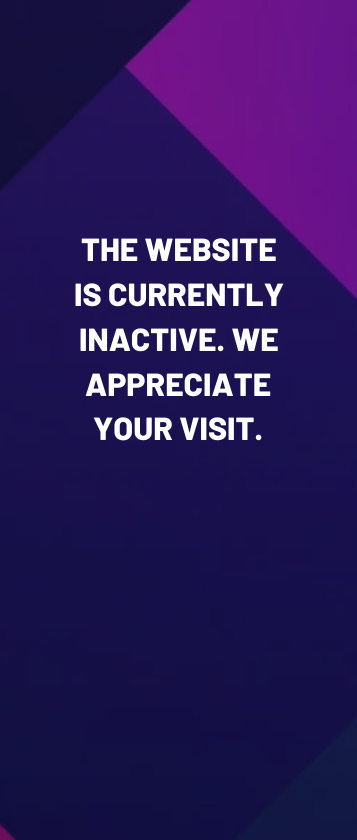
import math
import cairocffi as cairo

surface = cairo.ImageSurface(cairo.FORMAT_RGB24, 357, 840)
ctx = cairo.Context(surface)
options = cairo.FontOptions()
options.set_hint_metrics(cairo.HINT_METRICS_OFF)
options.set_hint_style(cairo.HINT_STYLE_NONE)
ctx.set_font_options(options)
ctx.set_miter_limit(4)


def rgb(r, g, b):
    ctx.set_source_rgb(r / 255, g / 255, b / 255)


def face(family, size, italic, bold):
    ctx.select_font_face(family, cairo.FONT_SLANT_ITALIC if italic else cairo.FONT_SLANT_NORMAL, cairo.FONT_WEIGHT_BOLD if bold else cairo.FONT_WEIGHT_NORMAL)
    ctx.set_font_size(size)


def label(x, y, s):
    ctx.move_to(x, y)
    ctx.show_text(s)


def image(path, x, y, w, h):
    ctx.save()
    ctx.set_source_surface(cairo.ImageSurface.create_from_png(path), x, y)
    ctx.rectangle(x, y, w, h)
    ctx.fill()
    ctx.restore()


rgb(25, 23, 23)
ctx.paint()
image('image0.png', 0, 0, 357, 840)
face('Barlow ExtraBold', 32, 0, 0)
rgb(255, 255, 255)
label(81, 261, 'THE WEBSITE')
label(74, 306, 'IS CURRENTLY')
label(79, 351, 'INACTIVE. WE')
label(85, 396, 'APPRECIATE')
label(93, 440, 'YOUR VISIT.')
surface.write_to_png('render.png')
